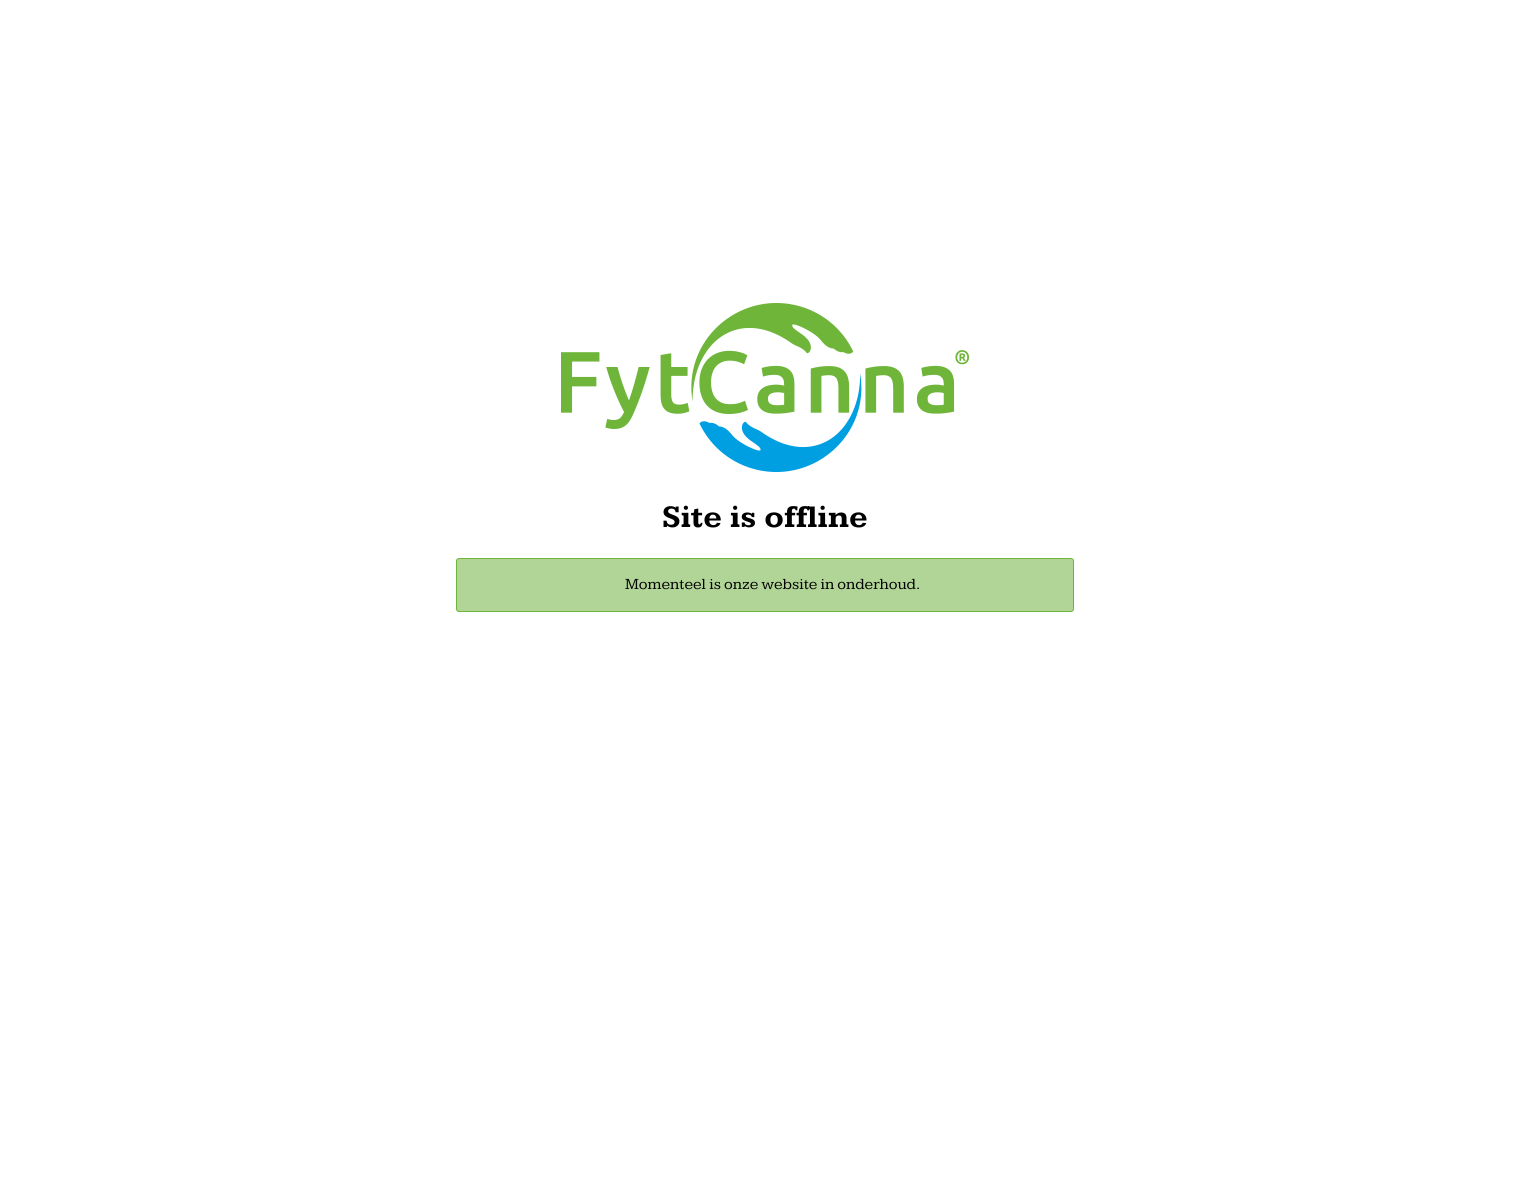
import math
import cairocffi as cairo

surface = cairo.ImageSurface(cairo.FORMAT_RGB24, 1529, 1195)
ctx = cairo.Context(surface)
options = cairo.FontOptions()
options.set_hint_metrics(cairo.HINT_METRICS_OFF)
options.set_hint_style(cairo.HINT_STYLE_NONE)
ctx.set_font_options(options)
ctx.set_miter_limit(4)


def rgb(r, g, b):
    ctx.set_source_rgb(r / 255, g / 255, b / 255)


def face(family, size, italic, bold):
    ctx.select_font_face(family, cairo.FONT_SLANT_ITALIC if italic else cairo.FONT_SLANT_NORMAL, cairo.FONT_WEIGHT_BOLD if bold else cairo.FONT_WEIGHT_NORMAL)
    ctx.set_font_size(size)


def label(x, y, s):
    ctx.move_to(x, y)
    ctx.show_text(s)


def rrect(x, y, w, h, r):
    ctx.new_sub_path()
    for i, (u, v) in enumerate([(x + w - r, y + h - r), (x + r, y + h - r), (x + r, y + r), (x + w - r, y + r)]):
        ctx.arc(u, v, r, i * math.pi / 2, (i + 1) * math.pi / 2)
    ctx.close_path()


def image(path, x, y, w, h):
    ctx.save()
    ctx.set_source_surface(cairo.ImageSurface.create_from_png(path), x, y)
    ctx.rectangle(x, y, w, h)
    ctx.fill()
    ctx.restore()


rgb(255, 255, 255)
ctx.paint()
image('image0.png', 561, 303, 408, 169)
face('Kameron', 32, 0, 1)
rgb(0, 0, 0)
label(662, 527, 'Site is offline')
rgb(177, 212, 151)
rrect(456.5, 558.5, 617, 53, 2.5)
ctx.fill_preserve()
rgb(110, 181, 58)
ctx.set_line_width(1)
ctx.stroke()
face('Kameron', 16, 0, 0)
rgb(0, 0, 0)
label(625, 589, 'Momenteel is onze website in onderhoud.')
surface.write_to_png('render.png')
